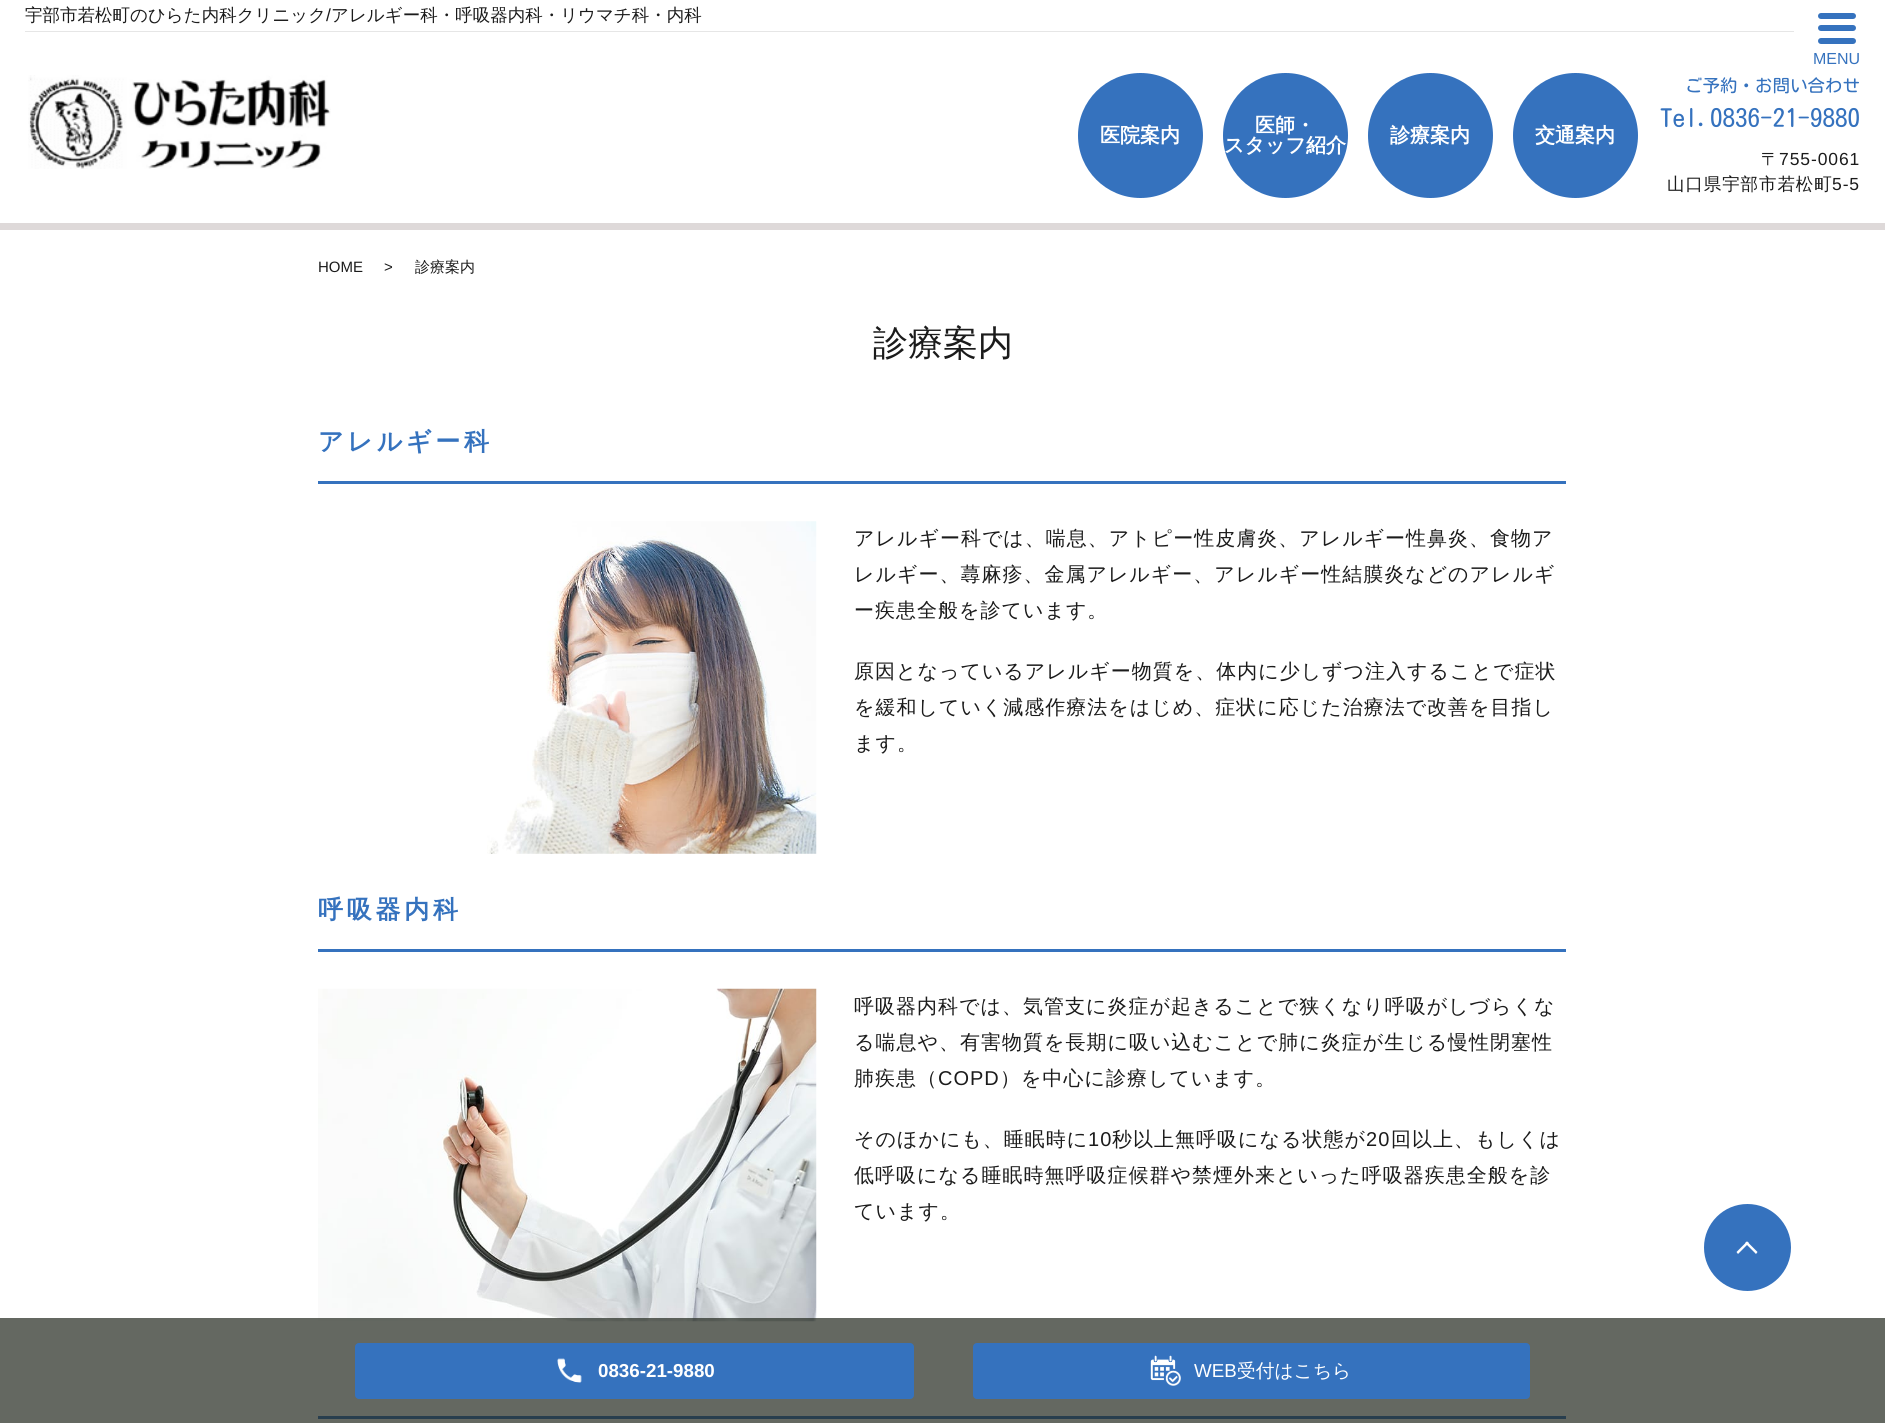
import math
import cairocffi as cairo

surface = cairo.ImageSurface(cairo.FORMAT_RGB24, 1885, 1423)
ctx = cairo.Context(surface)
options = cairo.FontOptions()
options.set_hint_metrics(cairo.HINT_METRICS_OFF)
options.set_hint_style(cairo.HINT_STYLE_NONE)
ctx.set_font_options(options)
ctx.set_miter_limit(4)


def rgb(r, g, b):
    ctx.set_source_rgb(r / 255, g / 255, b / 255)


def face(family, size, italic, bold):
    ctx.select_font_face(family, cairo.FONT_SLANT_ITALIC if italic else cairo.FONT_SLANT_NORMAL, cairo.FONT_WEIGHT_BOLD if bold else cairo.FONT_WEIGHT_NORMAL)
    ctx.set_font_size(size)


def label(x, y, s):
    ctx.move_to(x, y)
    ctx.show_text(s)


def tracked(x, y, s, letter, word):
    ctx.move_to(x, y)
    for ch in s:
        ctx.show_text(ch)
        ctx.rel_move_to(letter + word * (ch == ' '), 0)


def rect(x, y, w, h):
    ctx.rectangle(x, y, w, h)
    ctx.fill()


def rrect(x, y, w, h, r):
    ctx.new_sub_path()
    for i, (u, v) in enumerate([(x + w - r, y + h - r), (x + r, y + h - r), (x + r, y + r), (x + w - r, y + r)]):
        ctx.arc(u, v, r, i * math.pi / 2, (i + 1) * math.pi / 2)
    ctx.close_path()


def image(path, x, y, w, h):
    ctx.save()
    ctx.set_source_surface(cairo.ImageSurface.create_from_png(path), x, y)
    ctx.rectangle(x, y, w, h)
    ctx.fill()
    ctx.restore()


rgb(255, 255, 255)
ctx.paint()
rgb(222, 217, 217)
rect(0, 223, 1885, 7)
rgb(230, 230, 230)
rect(25, 31, 1769, 1)
face('WenQuanYi Zen Hei Medium', 17.5, 0, 0)
rgb(27, 27, 27)
label(25, 21, '宇部市若松町のひらた内科クリニック')
face('Liberation Sans', 17.5, 0, 0)
label(326, 21, '/')
face('WenQuanYi Zen Hei Medium', 17.5, 0, 0)
label(331, 21, 'アレルギー科・呼吸器内科・リウマチ科・内科')
image('image0.png', 28, 75, 303, 94)
rgb(53, 114, 190)
ctx.arc(1140.5, 135.5, 62.5, 0, 2 * math.pi)
ctx.fill()
face('WenQuanYi Zen Hei', 20, 0, 1)
rgb(255, 255, 255)
label(1100, 142, '医院案内')
rgb(53, 114, 190)
ctx.new_path()
ctx.arc(1285.5, 135.5, 62.5, 0, 2 * math.pi)
ctx.fill()
rgb(255, 255, 255)
label(1255, 132, '医師・')
label(1224, 152, 'スタッフ紹介')
rgb(53, 114, 190)
ctx.new_path()
ctx.arc(1430.5, 135.5, 62.5, 0, 2 * math.pi)
ctx.fill()
rgb(255, 255, 255)
label(1390, 142, '診療案内')
rgb(53, 114, 190)
ctx.new_path()
ctx.arc(1575.5, 135.5, 62.5, 0, 2 * math.pi)
ctx.fill()
rgb(255, 255, 255)
label(1535, 142, '交通案内')
rgb(53, 114, 190)
rrect(1818, 13, 38, 6, 3)
ctx.fill()
rrect(1818, 25, 38, 6, 3)
ctx.fill()
rrect(1818, 38, 38, 6, 3)
ctx.fill()
face('Liberation Sans', 16, 0, 0)
label(1813, 64, 'MENU')
face('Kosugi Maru', 17.5, 0, 0)
label(1685, 92, 'ご予約・お問い合わせ')
face('Kosugi Maru', 25, 0, 0)
label(1660, 127, 'Tel.0836-21-9880')
face('WenQuanYi Zen Hei Medium', 17.5, 0, 0)
rgb(27, 27, 27)
tracked(1761, 165, '〒', 0.9, 0)
face('Liberation Sans', 17.5, 0, 0)
tracked(1779, 165, '755-0061', 0.9, 0)
face('WenQuanYi Zen Hei Medium', 17.5, 0, 0)
tracked(1667, 190, '山口県宇部市若松町', 0.9, 0)
face('Liberation Sans', 17.5, 0, 0)
tracked(1832, 190, '5-5', 0.9, 0)
face('Liberation Sans', 15, 0, 0)
label(318, 272, 'HOME')
label(384, 272, '>')
face('WenQuanYi Zen Hei Medium', 15, 0, 0)
label(415, 272, '診療案内')
face('WenQuanYi Zen Hei Medium', 35, 0, 0)
label(873, 355, '診療案内')
face('WenQuanYi Zen Hei', 25, 0, 1)
rgb(53, 114, 190)
tracked(318, 450, 'アレルギー科', 3.75, 0)
rect(318, 481, 1248, 3)
image('image1.png', 487, 521, 330, 333)
face('WenQuanYi Zen Hei Medium', 20, 0, 0)
rgb(27, 27, 27)
tracked(854, 545, 'アレルギー科では、喘息、アトピー性皮膚炎、アレルギー性鼻炎、食物ア', 1, 0)
tracked(854, 581, 'レルギー、蕁麻疹、金属アレルギー、アレルギー性結膜炎などのアレルギ', 1, 0)
tracked(854, 617, 'ー疾患全般を診ています。', 1, 0)
tracked(854, 678, '原因となっているアレルギー物質を、体内に少しずつ注入することで症状', 1, 0)
tracked(854, 714, 'を緩和していく減感作療法をはじめ、症状に応じた治療法で改善を目指し', 1, 0)
tracked(854, 750, 'ます。', 1, 0)
face('WenQuanYi Zen Hei', 25, 0, 1)
rgb(53, 114, 190)
tracked(318, 918, '呼吸器内科', 3.75, 0)
rect(318, 949, 1248, 3)
image('image2.png', 318, 988, 499, 334)
face('WenQuanYi Zen Hei Medium', 20, 0, 0)
rgb(27, 27, 27)
tracked(854, 1013, '呼吸器内科では、気管支に炎症が起きることで狭くなり呼吸がしづらくな', 1, 0)
tracked(854, 1049, 'る喘息や、有害物質を長期に吸い込むことで肺に炎症が生じる慢性閉塞性', 1, 0)
tracked(854, 1085, '肺疾患（', 1, 0)
face('Liberation Sans', 20, 0, 0)
tracked(938, 1085, 'COPD', 1, 0)
face('WenQuanYi Zen Hei Medium', 20, 0, 0)
tracked(1000, 1085, '）を中心に診療しています。', 1, 0)
tracked(854, 1146, 'そのほかにも、睡眠時に', 1, 0)
face('Liberation Sans', 20, 0, 0)
tracked(1088, 1146, '10', 1, 0)
face('WenQuanYi Zen Hei Medium', 20, 0, 0)
tracked(1112, 1146, '秒以上無呼吸になる状態が', 1, 0)
face('Liberation Sans', 20, 0, 0)
tracked(1366, 1146, '20', 1, 0)
face('WenQuanYi Zen Hei Medium', 20, 0, 0)
tracked(1391, 1146, '回以上、もしくは', 1, 0)
tracked(854, 1182, '低呼吸になる睡眠時無呼吸症候群や禁煙外来といった呼吸器疾患全般を診', 1, 0)
tracked(854, 1218, 'ています。', 1, 0)
rgb(53, 114, 190)
rect(318, 1416, 1248, 3)
ctx.new_path()
ctx.arc(1747.5, 1247.5, 43.5, 0, 2 * math.pi)
ctx.fill()
rgb(255, 255, 255)
ctx.new_path()
ctx.move_to(1747, 1241.5)
ctx.line_to(1757.5, 1252)
ctx.line_to(1756, 1254)
ctx.line_to(1745, 1243)
ctx.close_path()
ctx.fill()
ctx.new_path()
ctx.move_to(1747, 1241.5)
ctx.line_to(1749, 1243)
ctx.line_to(1738, 1254)
ctx.line_to(1736.5, 1252)
ctx.close_path()
ctx.fill()
ctx.set_source_rgba(0.137, 0.157, 0.118, 0.7)
rect(0, 1318, 1885, 105)
rgb(53, 114, 190)
rrect(355, 1343, 559, 56, 4)
ctx.fill()
image('image3.png', 557, 1358, 25, 25)
face('Liberation Sans', 18.75, 0, 1)
rgb(255, 255, 255)
label(598, 1377, '0836-21-9880')
rgb(53, 114, 190)
rrect(973, 1343, 557, 56, 4)
ctx.fill()
image('image4.png', 1150, 1355, 31, 31)
face('Liberation Sans', 18.75, 0, 0)
rgb(255, 255, 255)
label(1194, 1377, 'WEB')
face('WenQuanYi Zen Hei Medium', 18.75, 0, 0)
label(1237, 1377, '受付はこちら')
surface.write_to_png('render.png')
